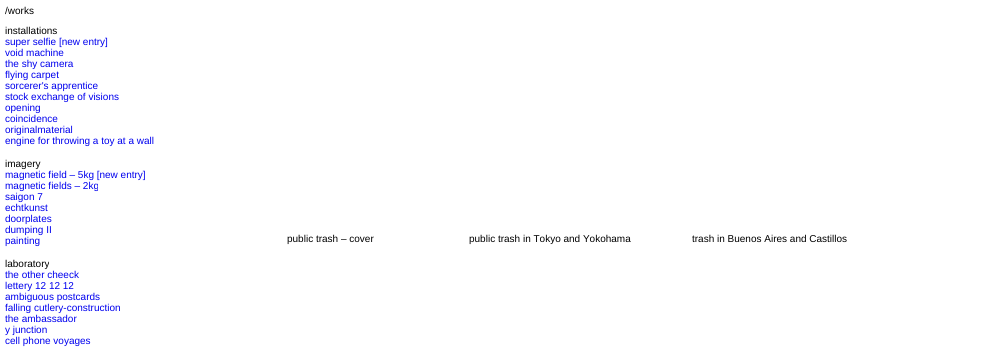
import math
import cairocffi as cairo

surface = cairo.ImageSurface(cairo.FORMAT_RGB24, 986, 359)
ctx = cairo.Context(surface)
options = cairo.FontOptions()
options.set_hint_metrics(cairo.HINT_METRICS_OFF)
options.set_hint_style(cairo.HINT_STYLE_NONE)
ctx.set_font_options(options)
ctx.set_miter_limit(4)


def rgb(r, g, b):
    ctx.set_source_rgb(r / 255, g / 255, b / 255)


def face(family, size, italic, bold):
    ctx.select_font_face(family, cairo.FONT_SLANT_ITALIC if italic else cairo.FONT_SLANT_NORMAL, cairo.FONT_WEIGHT_BOLD if bold else cairo.FONT_WEIGHT_NORMAL)
    ctx.set_font_size(size)


def label(x, y, s):
    ctx.move_to(x, y)
    ctx.show_text(s)


rgb(255, 255, 255)
ctx.paint()
face('Liberation Sans', 10, 0, 0)
rgb(0, 0, 0)
label(5, 14, '/works')
label(5, 34, 'installations')
rgb(0, 0, 238)
label(5, 45, 'super selfie [new entry]')
label(5, 56, 'void machine')
label(5, 67, 'the shy camera')
label(5, 78, 'flying carpet')
label(5, 89, 'sorcerer\'s apprentice')
label(5, 100, 'stock exchange of visions')
label(5, 111, 'opening')
label(5, 122, 'coincidence')
label(5, 133, 'originalmaterial')
label(5, 144, 'engine for throwing a toy at a wall')
rgb(0, 0, 0)
label(5, 167, 'imagery')
rgb(0, 0, 238)
label(5, 178, 'magnetic field – 5kg [new entry]')
label(5, 189, 'magnetic fields – 2kg')
label(5, 200, 'saigon 7')
label(5, 211, 'echtkunst')
label(5, 222, 'doorplates')
label(5, 233, 'dumping II')
label(5, 244, 'painting')
rgb(0, 0, 0)
label(5, 267, 'laboratory')
rgb(0, 0, 238)
label(5, 278, 'the other cheeck')
label(5, 289, 'lettery 12 12 12')
label(5, 300, 'ambiguous postcards')
label(5, 311, 'falling cutlery-construction')
label(5, 322, 'the ambassador')
label(5, 333, 'y junction')
label(5, 344, 'cell phone voyages')
rgb(0, 0, 0)
label(287, 242, 'public trash – cover')
label(469, 242, 'public trash in Tokyo and Yokohama')
label(692, 242, 'trash in Buenos Aires and Castillos')
surface.write_to_png('render.png')
